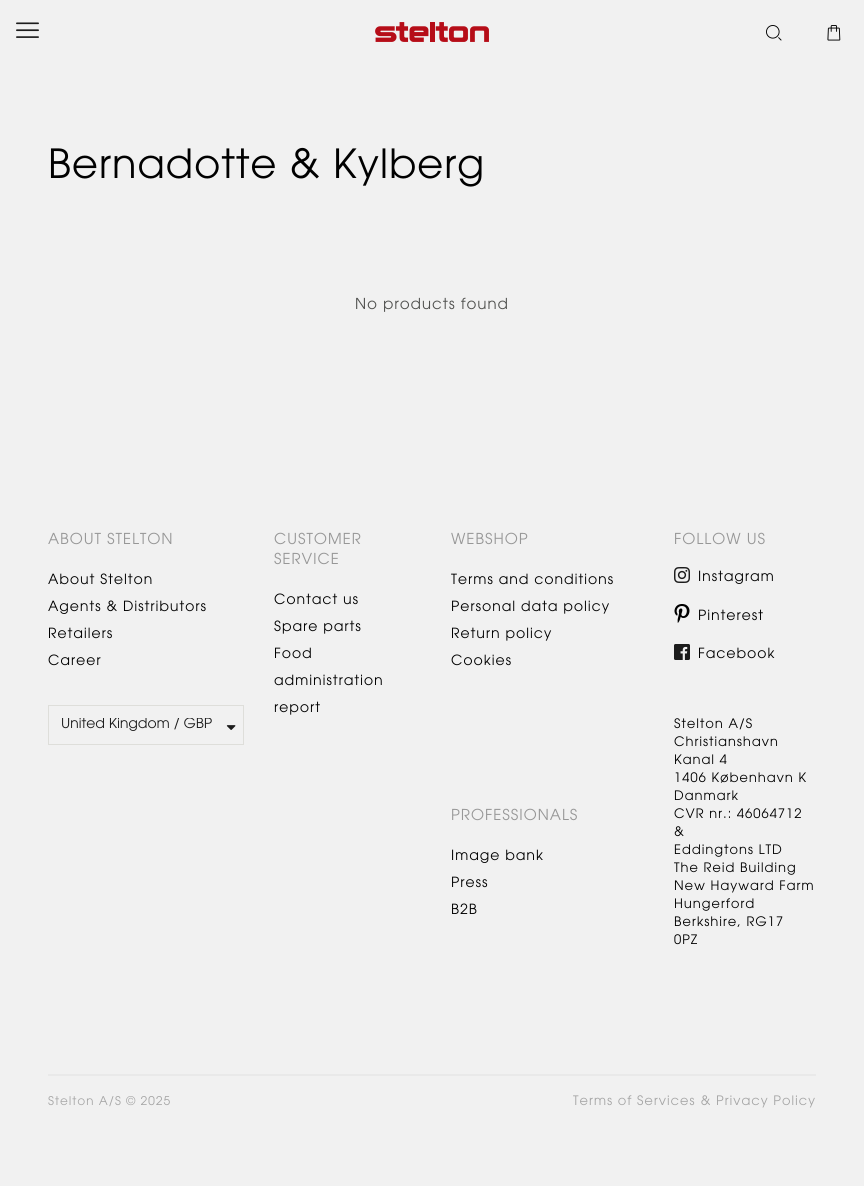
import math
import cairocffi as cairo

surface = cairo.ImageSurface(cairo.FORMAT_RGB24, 864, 1186)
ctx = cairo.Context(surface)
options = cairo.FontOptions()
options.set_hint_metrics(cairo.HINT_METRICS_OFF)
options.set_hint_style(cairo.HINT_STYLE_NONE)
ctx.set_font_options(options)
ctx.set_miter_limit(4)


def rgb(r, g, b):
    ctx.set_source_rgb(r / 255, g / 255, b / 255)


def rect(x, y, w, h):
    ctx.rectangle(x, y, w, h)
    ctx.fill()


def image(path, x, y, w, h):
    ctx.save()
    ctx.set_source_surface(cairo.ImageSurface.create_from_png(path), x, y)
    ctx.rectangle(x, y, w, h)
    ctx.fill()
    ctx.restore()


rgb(241, 241, 241)
ctx.paint()
image('image0.png', 16, 22, 23, 16)
image('image1.png', 375, 22, 114, 20)
image('image2.png', 766, 25, 16, 16)
image('image3.png', 827, 25, 14, 16)
image('image4.png', 50, 147, 432, 40)
image('image5.png', 356, 297, 151, 15)
image('image6.png', 48, 532, 124, 13)
image('image7.png', 48, 573, 104, 12)
image('image8.png', 48, 600, 158, 14)
image('image9.png', 49, 627, 63, 12)
image('image10.png', 48, 654, 53, 12)
image('image11.png', 226, 725, 10, 5)
ctx.rectangle(48.5, 705.5, 195, 39)
rgb(222, 222, 218)
ctx.set_line_width(1)
ctx.stroke()
image('image12.png', 62, 718, 150, 13)
image('image13.png', 274, 532, 87, 13)
image('image14.png', 274, 552, 64, 13)
image('image15.png', 274, 593, 84, 12)
image('image16.png', 274, 620, 87, 14)
image('image17.png', 275, 647, 36, 12)
image('image18.png', 274, 674, 108, 12)
image('image19.png', 274, 701, 46, 14)
image('image20.png', 451, 532, 77, 13)
image('image21.png', 451, 573, 162, 12)
image('image22.png', 452, 600, 157, 14)
image('image23.png', 452, 627, 100, 14)
image('image24.png', 451, 654, 60, 12)
image('image25.png', 675, 532, 90, 13)
image('image26.png', 674, 567, 16, 16)
image('image27.png', 699, 570, 74, 14)
image('image28.png', 674, 604, 16, 19)
image('image29.png', 699, 609, 64, 12)
image('image30.png', 674, 644, 16, 16)
image('image31.png', 699, 647, 76, 12)
image('image32.png', 674, 718, 78, 12)
image('image33.png', 674, 736, 104, 11)
image('image34.png', 675, 754, 52, 11)
image('image35.png', 675, 772, 131, 11)
image('image36.png', 674, 790, 64, 11)
image('image37.png', 674, 808, 127, 11)
image('image38.png', 674, 826, 10, 11)
image('image39.png', 674, 844, 108, 13)
image('image40.png', 674, 862, 121, 13)
image('image41.png', 674, 880, 139, 13)
image('image42.png', 675, 898, 79, 13)
image('image43.png', 674, 916, 109, 11)
image('image44.png', 674, 934, 23, 11)
image('image45.png', 452, 808, 125, 13)
image('image46.png', 452, 849, 91, 14)
image('image47.png', 452, 876, 36, 12)
image('image48.png', 452, 903, 25, 11)
rgb(233, 233, 233)
rect(48, 1074, 768, 2)
image('image49.png', 48, 1096, 122, 11)
image('image50.png', 573, 1095, 122, 11)
image('image51.png', 701, 1095, 9, 11)
image('image52.png', 717, 1095, 98, 13)
surface.write_to_png('render.png')
